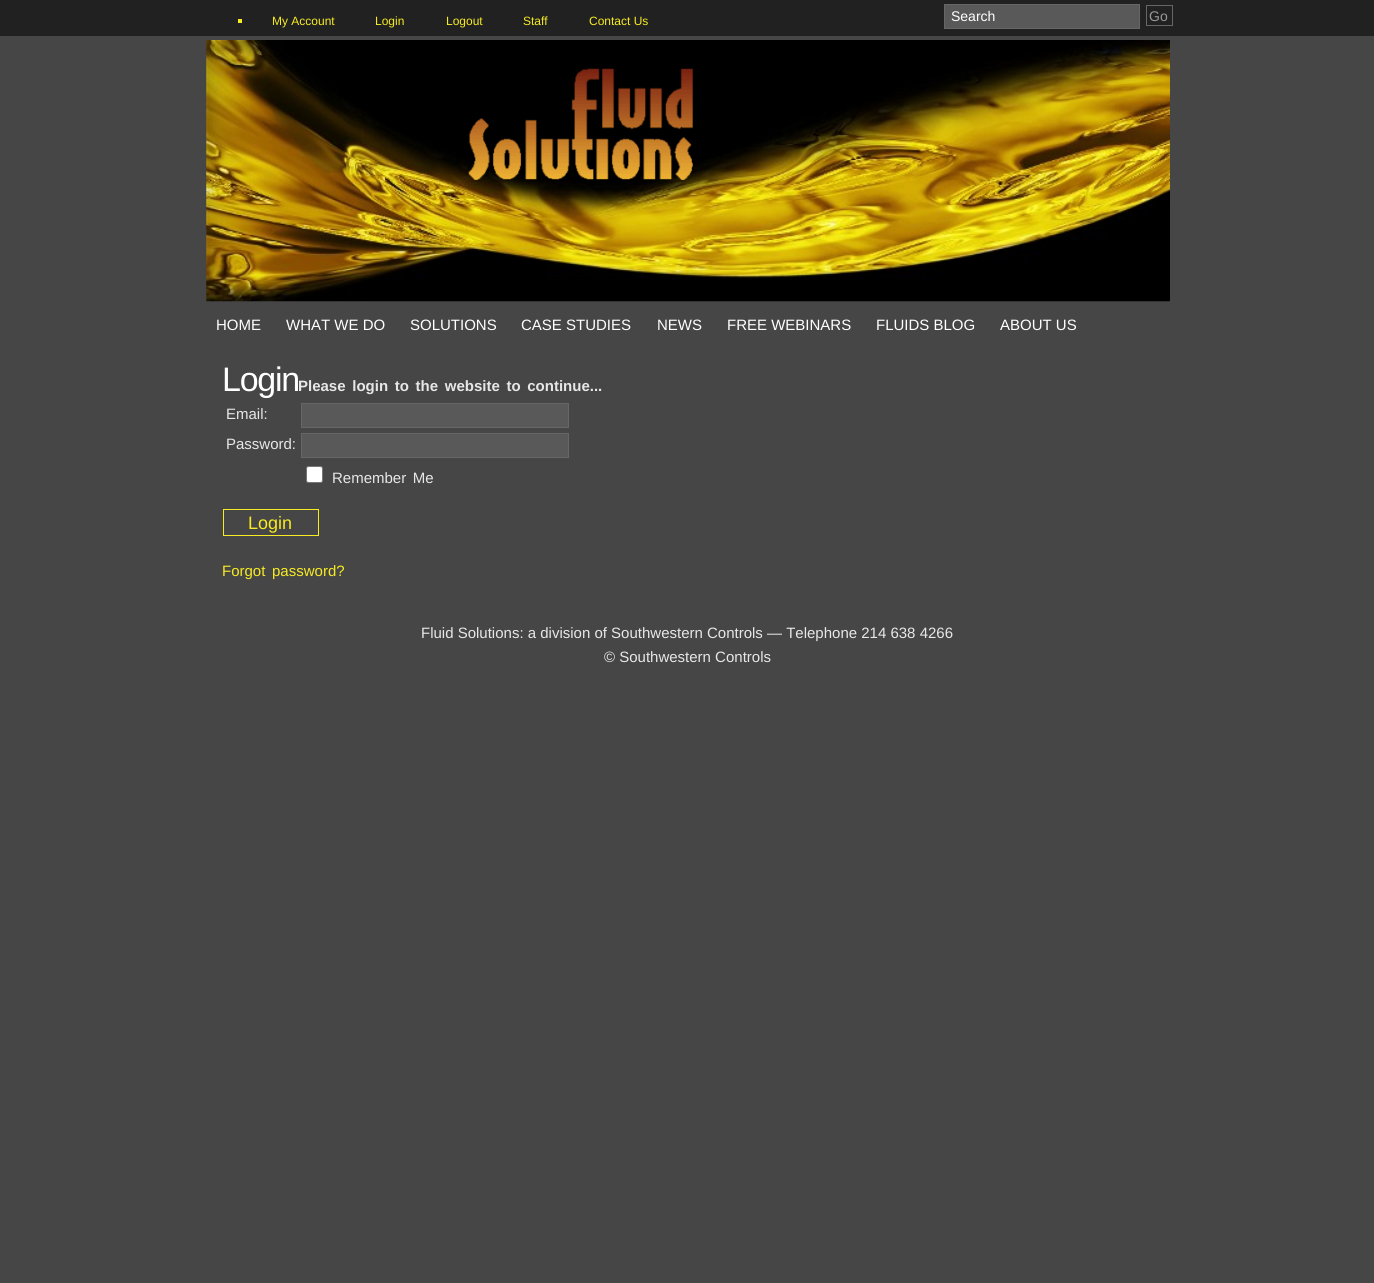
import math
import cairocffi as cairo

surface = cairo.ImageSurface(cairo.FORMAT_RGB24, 1374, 1283)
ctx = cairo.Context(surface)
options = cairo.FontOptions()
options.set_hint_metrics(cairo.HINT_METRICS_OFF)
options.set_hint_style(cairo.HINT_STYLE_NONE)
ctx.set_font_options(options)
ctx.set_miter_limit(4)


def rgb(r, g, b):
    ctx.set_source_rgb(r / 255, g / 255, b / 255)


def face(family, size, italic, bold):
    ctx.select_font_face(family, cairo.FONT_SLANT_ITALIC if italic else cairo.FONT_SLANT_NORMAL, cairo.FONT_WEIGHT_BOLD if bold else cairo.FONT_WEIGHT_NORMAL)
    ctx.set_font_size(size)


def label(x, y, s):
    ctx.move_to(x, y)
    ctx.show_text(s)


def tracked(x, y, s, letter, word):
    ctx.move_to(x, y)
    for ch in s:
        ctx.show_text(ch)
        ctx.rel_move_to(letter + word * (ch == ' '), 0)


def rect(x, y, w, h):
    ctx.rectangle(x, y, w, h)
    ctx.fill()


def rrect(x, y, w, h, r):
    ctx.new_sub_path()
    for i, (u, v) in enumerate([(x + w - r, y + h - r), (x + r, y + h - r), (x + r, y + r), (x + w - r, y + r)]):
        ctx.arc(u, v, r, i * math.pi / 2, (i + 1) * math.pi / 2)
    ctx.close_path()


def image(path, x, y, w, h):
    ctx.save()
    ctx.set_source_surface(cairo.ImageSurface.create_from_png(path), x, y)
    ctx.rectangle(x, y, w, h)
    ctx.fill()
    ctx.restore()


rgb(70, 70, 70)
ctx.paint()
rgb(33, 33, 33)
rect(0, 0, 1374, 36)
rgb(247, 235, 35)
rect(238, 19, 4, 4)
face('Liberation Sans', 12, 0, 0)
label(272, 25, 'My Account')
label(375, 25, 'Login')
label(446, 25, 'Logout')
label(523, 25, 'Staff')
label(589, 25, 'Contact Us')
rgb(89, 89, 89)
ctx.rectangle(944.5, 4.5, 195, 24)
ctx.fill_preserve()
rgb(102, 102, 102)
ctx.set_line_width(1)
ctx.stroke()
face('Liberation Sans', 14, 0, 0)
rgb(255, 255, 255)
label(951, 21, 'Search')
ctx.rectangle(1146.5, 5.5, 26, 20)
rgb(102, 102, 102)
ctx.stroke()
rgb(153, 153, 153)
label(1149, 21, 'Go')
image('image0.png', 206, 40, 964, 262)
image('image1.png', 468, 68, 225, 112)
face('Liberation Sans', 15, 0, 0)
rgb(255, 255, 255)
label(216, 330, 'HOME')
label(286, 330, 'WHAT WE DO')
label(410, 330, 'SOLUTIONS')
label(521, 330, 'CASE STUDIES')
label(657, 330, 'NEWS')
label(727, 330, 'FREE WEBINARS')
label(876, 330, 'FLUIDS BLOG')
label(1000, 330, 'ABOUT US')
face('Liberation Sans', 34, 0, 0)
tracked(222, 391, 'Login', -1.25, 0)
face('Liberation Sans', 15, 0, 1)
rgb(231, 231, 231)
tracked(298, 391, 'Please login to the website to continue...', 0, 2.5)
face('Liberation Sans', 15, 0, 0)
label(226, 419, 'Email:')
rgb(89, 89, 89)
ctx.rectangle(301.5, 403.5, 267, 24)
ctx.fill_preserve()
rgb(102, 102, 102)
ctx.stroke()
rgb(231, 231, 231)
label(226, 449, 'Password:')
rgb(89, 89, 89)
ctx.rectangle(301.5, 433.5, 267, 24)
ctx.fill_preserve()
rgb(102, 102, 102)
ctx.stroke()
rgb(255, 255, 255)
rrect(306.5, 466.5, 16, 16, 2)
ctx.fill_preserve()
rgb(118, 118, 118)
ctx.stroke()
rgb(231, 231, 231)
tracked(332, 483, 'Remember Me', 0, 2.5)
ctx.rectangle(223.5, 509.5, 95, 26)
rgb(247, 235, 35)
ctx.stroke()
face('Liberation Sans', 18, 0, 0)
label(248, 529, 'Login')
face('Liberation Sans', 15, 0, 0)
tracked(222, 576, 'Forgot password?', 0, 2.5)
rgb(231, 231, 231)
label(421, 638, 'Fluid Solutions: a division of Southwestern Controls — Telephone 214 638 4266')
label(604, 662, '© Southwestern Controls')
surface.write_to_png('render.png')
